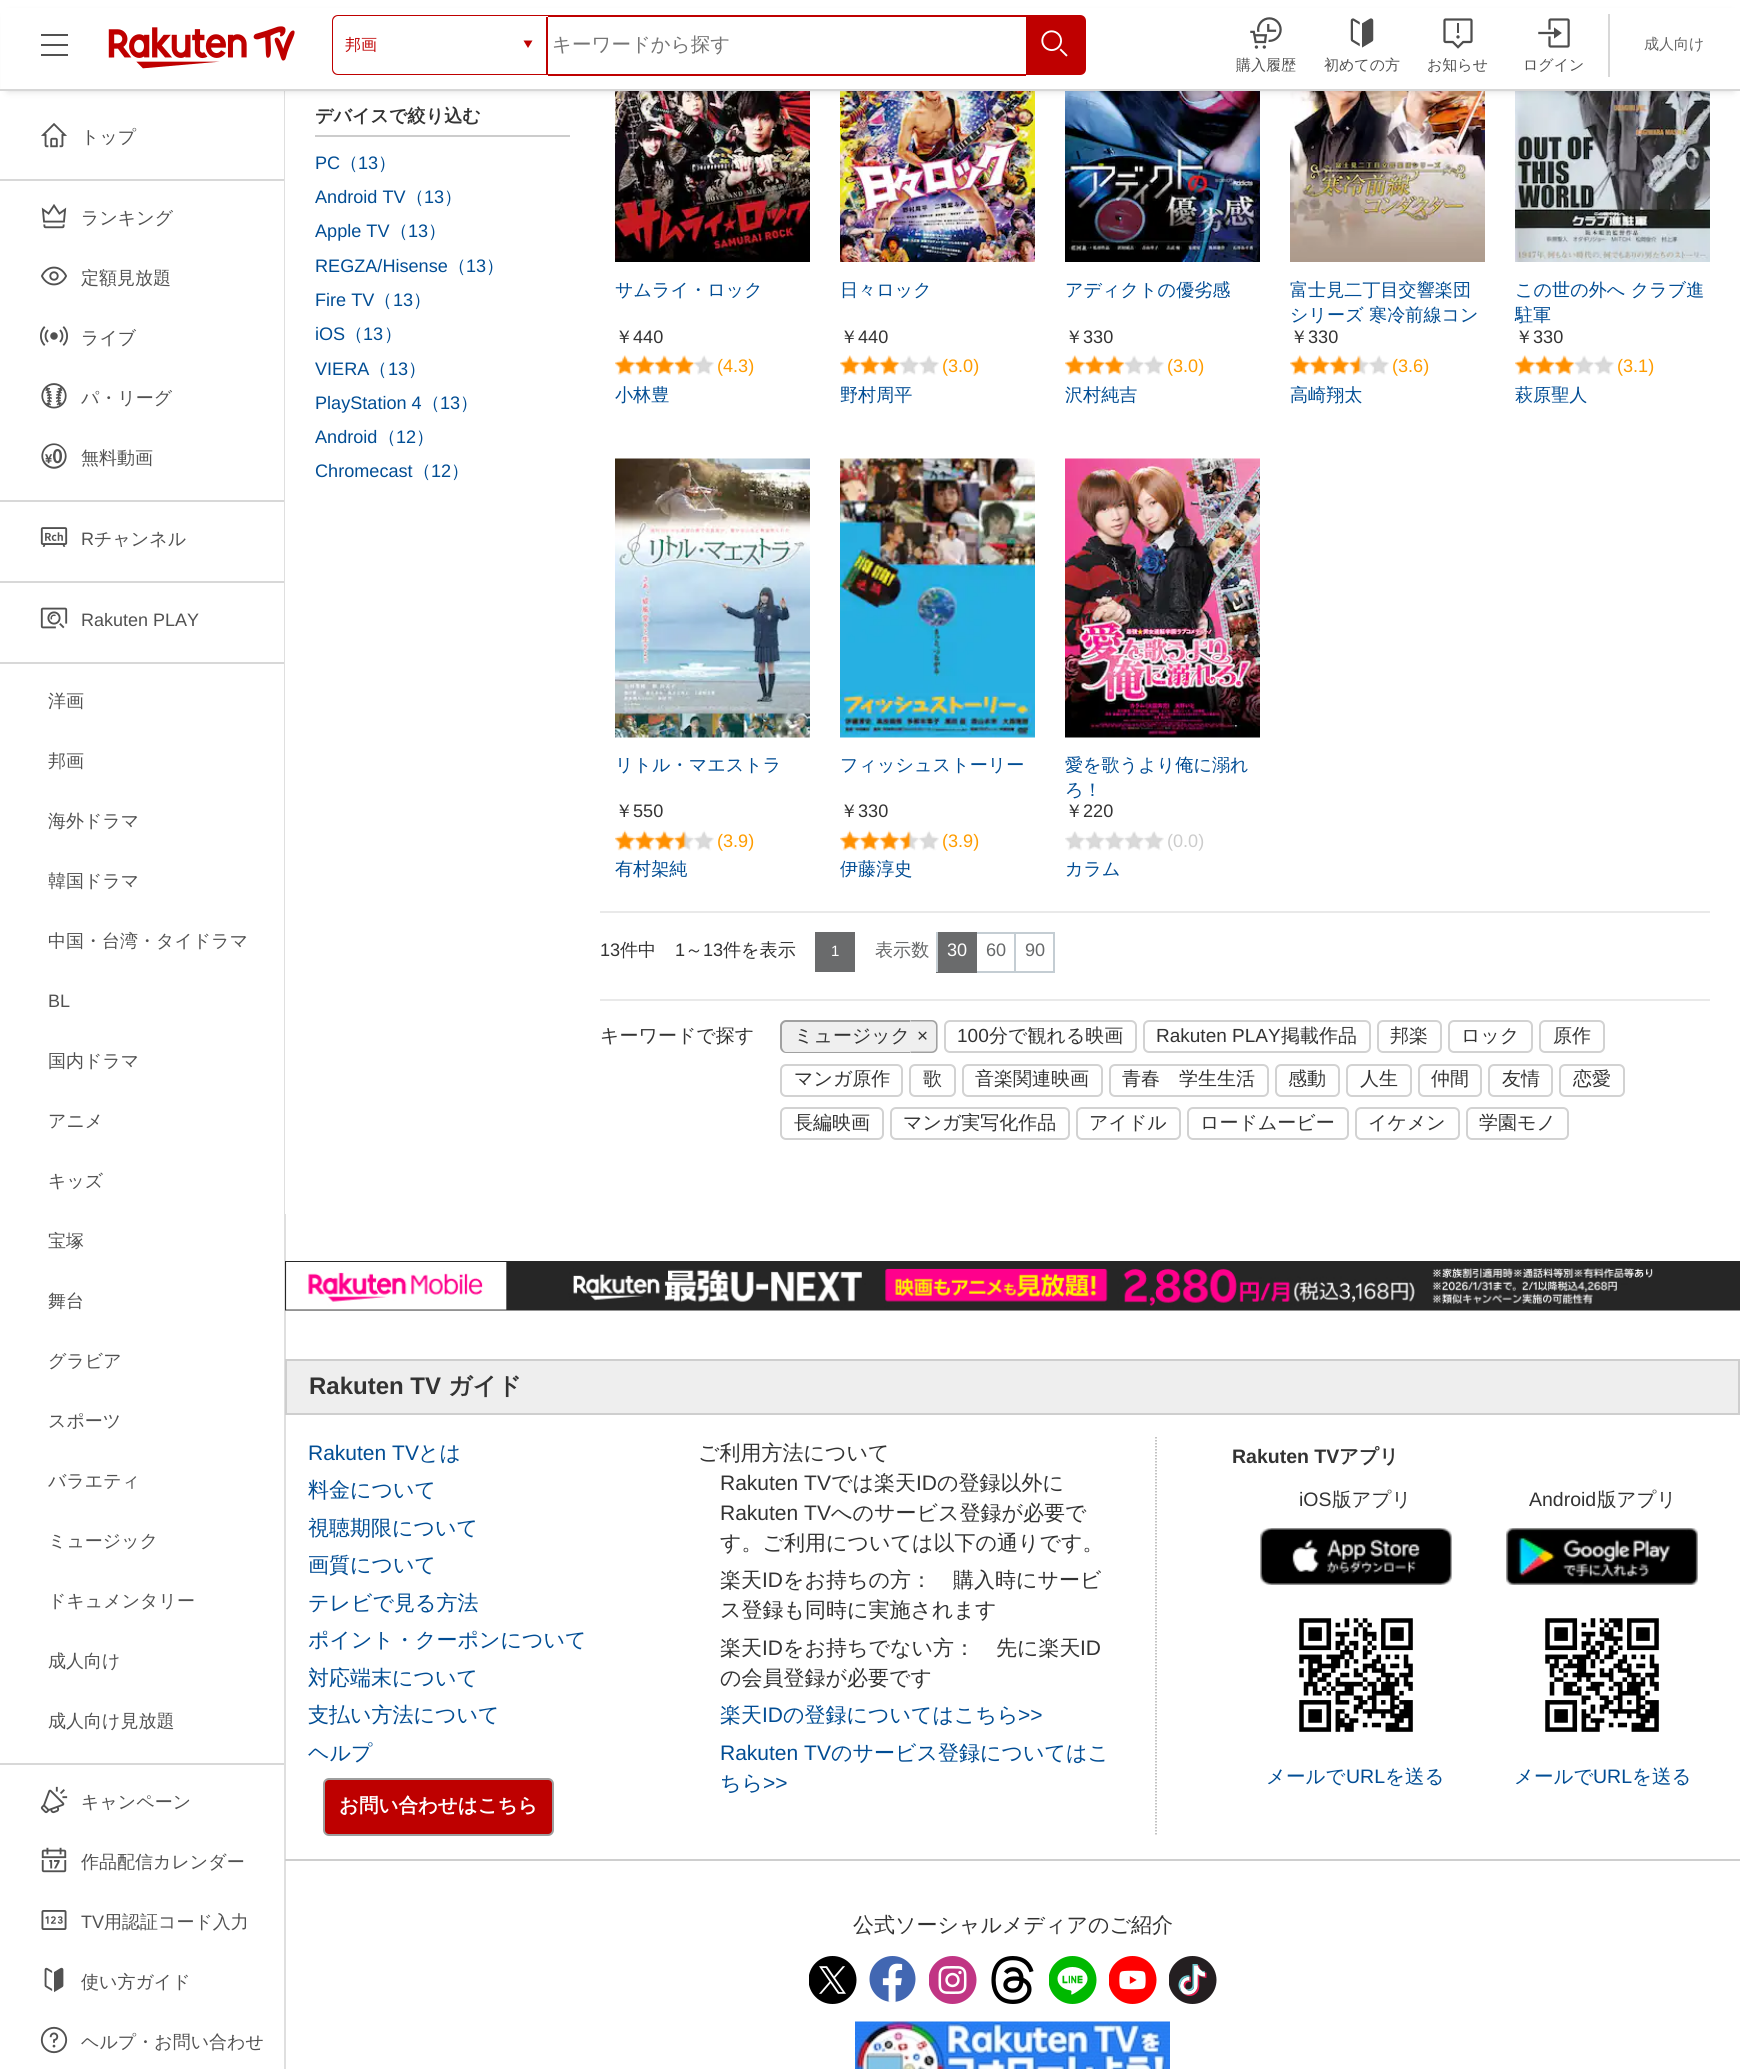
import math
import cairocffi as cairo

surface = cairo.ImageSurface(cairo.FORMAT_RGB24, 1740, 2069)
ctx = cairo.Context(surface)
options = cairo.FontOptions()
options.set_hint_metrics(cairo.HINT_METRICS_OFF)
options.set_hint_style(cairo.HINT_STYLE_NONE)
ctx.set_font_options(options)
ctx.set_miter_limit(4)


def rgb(r, g, b):
    ctx.set_source_rgb(r / 255, g / 255, b / 255)


def face(family, size, italic, bold):
    ctx.select_font_face(family, cairo.FONT_SLANT_ITALIC if italic else cairo.FONT_SLANT_NORMAL, cairo.FONT_WEIGHT_BOLD if bold else cairo.FONT_WEIGHT_NORMAL)
    ctx.set_font_size(size)


def label(x, y, s):
    ctx.move_to(x, y)
    ctx.show_text(s)


def tracked(x, y, s, letter, word):
    ctx.move_to(x, y)
    for ch in s:
        ctx.show_text(ch)
        ctx.rel_move_to(letter + word * (ch == ' '), 0)


def rect(x, y, w, h):
    ctx.rectangle(x, y, w, h)
    ctx.fill()


def rrect(x, y, w, h, r):
    ctx.new_sub_path()
    for i, (u, v) in enumerate([(x + w - r, y + h - r), (x + r, y + h - r), (x + r, y + r), (x + w - r, y + r)]):
        ctx.arc(u, v, r, i * math.pi / 2, (i + 1) * math.pi / 2)
    ctx.close_path()


def soft_shadow(x, y, w, h, r, blur, alpha):
    ctx.push_group_with_content(cairo.CONTENT_ALPHA)
    ctx.set_operator(cairo.OPERATOR_SOURCE)
    for i in range(15, -16, -2):
        e = blur * i / 6
        if min(w, h) + 2 * e > 0:
            ctx.set_source_rgba(0, 0, 0, alpha * math.erfc((i - 1) / 8.5) / 2)
            rrect(x - e, y - e, w + 2 * e, h + 2 * e, max(0, min(r + e + blur * .6, min(w, h) / 2 + e)))
            ctx.fill()
    ctx.mask(ctx.pop_group())


def image(path, x, y, w, h):
    ctx.save()
    ctx.set_source_surface(cairo.ImageSurface.create_from_png(path), x, y)
    ctx.rectangle(x, y, w, h)
    ctx.fill()
    ctx.restore()


rgb(255, 255, 255)
ctx.paint()
rgb(223, 223, 223)
rect(284, 90, 2, 1979)
rgb(255, 255, 255)
rect(285, 91, 1, 1123)
image('image19.png', 615, 91, 195, 171)
image('image21.png', 840, 91, 195, 171)
image('image23.png', 1065, 91, 195, 171)
image('image25.png', 1290, 91, 195, 171)
image('image27.png', 1515, 91, 195, 171)
rgb(0, 0, 0)
soft_shadow(8, 15, 1725, 75, 0, 4, 0.2)
rgb(255, 255, 255)
rect(1, 8, 1739, 81)
rgb(215, 215, 215)
rect(0, 89, 1740, 2)
rgb(81, 81, 81)
rect(41, 34, 27, 2)
rect(41, 44, 27, 2)
rect(41, 54, 27, 2)
image('image0.png', 108, 26, 187, 43)
rgb(191, 0, 0)
ctx.set_fill_rule(cairo.FILL_RULE_EVEN_ODD)
ctx.new_path()
ctx.move_to(338, 15)
ctx.line_to(548, 15)
ctx.line_to(548, 75)
ctx.line_to(338, 75)
ctx.curve_to(334, 75, 332, 72, 332, 69)
ctx.line_to(332, 21)
ctx.curve_to(332, 18, 334, 15, 338, 15)
ctx.close_path()
ctx.move_to(338, 16)
ctx.line_to(548, 16)
ctx.line_to(548, 74)
ctx.line_to(338, 74)
ctx.curve_to(335, 74, 333, 71, 333, 69)
ctx.line_to(333, 21)
ctx.curve_to(333, 19, 335, 16, 338, 16)
ctx.close_path()
ctx.fill()
face('WenQuanYi Zen Hei Medium', 16, 0, 0)
label(345, 50, '邦画')
ctx.set_fill_rule(cairo.FILL_RULE_WINDING)
ctx.new_path()
ctx.move_to(523.5, 40.5)
ctx.line_to(532.5, 40.5)
ctx.line_to(528, 48)
ctx.close_path()
ctx.fill()
rect(546, 17, 2, 58)
rect(548, 15, 478, 2)
rect(548, 74, 478, 2)
face('WenQuanYi Zen Hei Medium', 19.5, 0, 0)
rgb(117, 117, 117)
label(552, 51, 'キーワードから探す')
rgb(191, 0, 0)
ctx.new_path()
ctx.move_to(1026, 15)
ctx.line_to(1080, 15)
ctx.curve_to(1083.5, 15, 1086, 17.5, 1086, 21)
ctx.line_to(1086, 69)
ctx.curve_to(1086, 72.5, 1083.5, 75, 1080, 75)
ctx.line_to(1026, 75)
ctx.close_path()
ctx.fill()
image('image1.png', 1041, 30, 27, 27)
rgb(216, 216, 216)
rect(1608, 14, 2, 63)
face('WenQuanYi Zen Hei Medium', 15, 0, 0)
rgb(98, 98, 98)
label(1644, 49, '成人向け')
image('image2.png', 1250, 17, 32, 32)
rgb(81, 81, 81)
label(1236, 70, '購入履歴')
image('image3.png', 1350, 18, 24, 30)
label(1324, 70, '初めての方')
image('image4.png', 1443, 18, 30, 31)
label(1427, 70, 'お知らせ')
image('image5.png', 1538, 18, 32, 30)
label(1523, 70, 'ログイン')
image('image6.png', 41, 123, 26, 25)
face('WenQuanYi Zen Hei Medium', 18, 0, 0)
label(81, 143, 'トップ')
rgb(216, 216, 216)
rect(0, 179, 284, 2)
image('image7.png', 41, 204, 26, 25)
rgb(81, 81, 81)
label(81, 224, 'ランキング')
image('image8.png', 41, 266, 26, 20)
label(81, 284, '定額見放題')
image('image9.png', 40, 326, 28, 20)
label(81, 344, 'ライブ')
image('image10.png', 41, 383, 26, 26)
label(81, 404, 'パ・リーグ')
image('image11.png', 41, 443, 26, 26)
label(81, 464, '無料動画')
rgb(216, 216, 216)
rect(0, 500, 284, 2)
image('image12.png', 40, 527, 28, 20)
face('Liberation Sans', 18, 0, 0)
rgb(81, 81, 81)
label(81, 545, 'R')
face('WenQuanYi Zen Hei Medium', 18, 0, 0)
label(94, 545, 'チャンネル')
rgb(216, 216, 216)
rect(0, 581, 284, 2)
image('image13.png', 40, 607, 28, 22)
face('Liberation Sans', 18, 0, 0)
rgb(81, 81, 81)
label(81, 626, 'Rakuten PLAY')
rgb(216, 216, 216)
rect(0, 662, 284, 2)
face('WenQuanYi Zen Hei Medium', 18, 0, 0)
rgb(81, 81, 81)
label(48, 707, '洋画')
label(48, 767, '邦画')
label(48, 827, '海外ドラマ')
label(48, 887, '韓国ドラマ')
label(48, 947, '中国・台湾・タイドラマ')
face('Liberation Sans', 18, 0, 0)
label(48, 1007, 'BL')
face('WenQuanYi Zen Hei Medium', 18, 0, 0)
label(48, 1067, '国内ドラマ')
label(48, 1127, 'アニメ')
label(48, 1187, 'キッズ')
label(48, 1247, '宝塚')
label(48, 1307, '舞台')
label(48, 1367, 'グラビア')
label(48, 1427, 'スポーツ')
label(48, 1487, 'バラエティ')
label(48, 1547, 'ミュージック')
label(48, 1607, 'ドキュメンタリー')
label(48, 1667, '成人向け')
label(48, 1727, '成人向け見放題')
rgb(216, 216, 216)
rect(0, 1763, 284, 2)
image('image14.png', 40, 1786, 28, 28)
rgb(81, 81, 81)
label(81, 1808, 'キャンペーン')
image('image15.png', 41, 1847, 26, 26)
label(81, 1868, '作品配信カレンダー')
image('image16.png', 41, 1910, 26, 20)
face('Liberation Sans', 18, 0, 0)
label(81, 1928, 'TV')
face('WenQuanYi Zen Hei Medium', 18, 0, 0)
label(104, 1928, '用認証コード入力')
image('image17.png', 44, 1967, 20, 26)
label(81, 1988, '使い方ガイド')
image('image18.png', 40, 2026, 28, 28)
label(81, 2048, 'ヘルプ・お問い合わせ')
rgb(204, 204, 204)
rect(315, 135, 255, 2)
face('WenQuanYi Zen Hei', 18.1, 0, 1)
rgb(51, 51, 51)
label(315, 122, 'デバイスで絞り込む')
face('Liberation Sans', 18.1, 0, 0)
rgb(1, 77, 148)
label(315, 169, 'PC')
face('WenQuanYi Zen Hei Medium', 18.1, 0, 0)
label(340, 169, '（')
face('Liberation Sans', 18.1, 0, 0)
label(358, 169, '13')
face('WenQuanYi Zen Hei Medium', 18.1, 0, 0)
label(378, 169, '）')
face('Liberation Sans', 18.1, 0, 0)
label(315, 203, 'Android TV')
face('WenQuanYi Zen Hei Medium', 18.1, 0, 0)
label(406, 203, '（')
face('Liberation Sans', 18.1, 0, 0)
label(424, 203, '13')
face('WenQuanYi Zen Hei Medium', 18.1, 0, 0)
label(444, 203, '）')
face('Liberation Sans', 18.1, 0, 0)
label(315, 237, 'Apple TV')
face('WenQuanYi Zen Hei Medium', 18.1, 0, 0)
label(390, 237, '（')
face('Liberation Sans', 18.1, 0, 0)
label(408, 237, '13')
face('WenQuanYi Zen Hei Medium', 18.1, 0, 0)
label(428, 237, '）')
face('Liberation Sans', 18.1, 0, 0)
label(315, 272, 'REGZA/Hisense')
face('WenQuanYi Zen Hei Medium', 18.1, 0, 0)
label(448, 272, '（')
face('Liberation Sans', 18.1, 0, 0)
label(466, 272, '13')
face('WenQuanYi Zen Hei Medium', 18.1, 0, 0)
label(486, 272, '）')
face('Liberation Sans', 18.1, 0, 0)
label(315, 306, 'Fire TV')
face('WenQuanYi Zen Hei Medium', 18.1, 0, 0)
label(374, 306, '（')
face('Liberation Sans', 18.1, 0, 0)
label(393, 306, '13')
face('WenQuanYi Zen Hei Medium', 18.1, 0, 0)
label(413, 306, '）')
face('Liberation Sans', 18.1, 0, 0)
label(315, 340, 'iOS')
face('WenQuanYi Zen Hei Medium', 18.1, 0, 0)
label(345, 340, '（')
face('Liberation Sans', 18.1, 0, 0)
label(363, 340, '13')
face('WenQuanYi Zen Hei Medium', 18.1, 0, 0)
label(384, 340, '）')
face('Liberation Sans', 18.1, 0, 0)
label(315, 375, 'VIERA')
face('WenQuanYi Zen Hei Medium', 18.1, 0, 0)
label(369, 375, '（')
face('Liberation Sans', 18.1, 0, 0)
label(388, 375, '13')
face('WenQuanYi Zen Hei Medium', 18.1, 0, 0)
label(408, 375, '）')
face('Liberation Sans', 18.1, 0, 0)
label(315, 409, 'PlayStation 4')
face('WenQuanYi Zen Hei Medium', 18.1, 0, 0)
label(422, 409, '（')
face('Liberation Sans', 18.1, 0, 0)
label(440, 409, '13')
face('WenQuanYi Zen Hei Medium', 18.1, 0, 0)
label(460, 409, '）')
face('Liberation Sans', 18.1, 0, 0)
label(315, 443, 'Android')
face('WenQuanYi Zen Hei Medium', 18.1, 0, 0)
label(378, 443, '（')
face('Liberation Sans', 18.1, 0, 0)
label(396, 443, '12')
face('WenQuanYi Zen Hei Medium', 18.1, 0, 0)
label(416, 443, '）')
face('Liberation Sans', 18.1, 0, 0)
label(315, 477, 'Chromecast')
face('WenQuanYi Zen Hei Medium', 18.1, 0, 0)
label(413, 477, '（')
face('Liberation Sans', 18.1, 0, 0)
label(431, 477, '12')
face('WenQuanYi Zen Hei Medium', 18.1, 0, 0)
label(451, 477, '）')
label(615, 296, 'サムライ・ロック')
rgb(51, 51, 51)
label(615, 343, '￥')
face('Liberation Sans', 18.1, 0, 0)
label(633, 343, '440')
image('image20.png', 615, 355, 99, 20)
rgb(255, 156, 0)
label(717, 372, '(4.3)')
face('WenQuanYi Zen Hei Medium', 18.1, 0, 0)
rgb(1, 77, 148)
label(615, 401, '小林豊')
label(840, 296, '日々ロック')
rgb(51, 51, 51)
label(840, 343, '￥')
face('Liberation Sans', 18.1, 0, 0)
label(858, 343, '440')
image('image22.png', 840, 355, 99, 20)
rgb(255, 156, 0)
label(942, 372, '(3.0)')
face('WenQuanYi Zen Hei Medium', 18.1, 0, 0)
rgb(1, 77, 148)
label(840, 401, '野村周平')
label(1065, 296, 'アディクトの優劣感')
rgb(51, 51, 51)
label(1065, 343, '￥')
face('Liberation Sans', 18.1, 0, 0)
label(1083, 343, '330')
image('image24.png', 1065, 355, 99, 20)
rgb(255, 156, 0)
label(1167, 372, '(3.0)')
face('WenQuanYi Zen Hei Medium', 18.1, 0, 0)
rgb(1, 77, 148)
label(1065, 401, '沢村純吉')
label(1290, 296, '富士見二丁目交響楽団')
label(1290, 321, 'シリーズ 寒冷前線コン')
rgb(51, 51, 51)
label(1290, 343, '￥')
face('Liberation Sans', 18.1, 0, 0)
label(1308, 343, '330')
image('image26.png', 1290, 355, 99, 20)
rgb(255, 156, 0)
label(1392, 372, '(3.6)')
face('WenQuanYi Zen Hei Medium', 18.1, 0, 0)
rgb(1, 77, 148)
label(1290, 401, '高崎翔太')
label(1515, 296, 'この世の外へ クラブ進')
label(1515, 321, '駐軍')
rgb(51, 51, 51)
label(1515, 343, '￥')
face('Liberation Sans', 18.1, 0, 0)
label(1533, 343, '330')
image('image28.png', 1515, 355, 99, 20)
rgb(255, 156, 0)
label(1617, 372, '(3.1)')
face('WenQuanYi Zen Hei Medium', 18.1, 0, 0)
rgb(1, 77, 148)
label(1515, 401, '萩原聖人')
image('image29.png', 615, 458, 195, 280)
label(615, 771, 'リトル・マエストラ')
rgb(51, 51, 51)
label(615, 817, '￥')
face('Liberation Sans', 18.1, 0, 0)
label(633, 817, '550')
image('image30.png', 615, 830, 99, 21)
rgb(255, 156, 0)
label(717, 847, '(3.9)')
face('WenQuanYi Zen Hei Medium', 18.1, 0, 0)
rgb(1, 77, 148)
label(615, 875, '有村架純')
image('image31.png', 840, 458, 195, 280)
label(840, 771, 'フィッシュストーリー')
rgb(51, 51, 51)
label(840, 817, '￥')
face('Liberation Sans', 18.1, 0, 0)
label(858, 817, '330')
image('image30.png', 840, 830, 99, 21)
rgb(255, 156, 0)
label(942, 847, '(3.9)')
face('WenQuanYi Zen Hei Medium', 18.1, 0, 0)
rgb(1, 77, 148)
label(840, 875, '伊藤淳史')
image('image32.png', 1065, 458, 195, 280)
label(1065, 771, '愛を歌うより俺に溺れ')
label(1065, 796, 'ろ！')
rgb(51, 51, 51)
label(1065, 817, '￥')
face('Liberation Sans', 18.1, 0, 0)
label(1083, 817, '220')
image('image33.png', 1065, 831, 99, 20)
rgb(204, 204, 204)
label(1167, 847, '(0.0)')
face('WenQuanYi Zen Hei Medium', 18.1, 0, 0)
rgb(1, 77, 148)
label(1065, 875, 'カラム')
rgb(233, 233, 233)
rect(600, 911, 1110, 2)
face('Liberation Sans', 18.1, 0, 0)
rgb(51, 51, 51)
label(600, 956, '13')
face('WenQuanYi Zen Hei Medium', 18.1, 0, 0)
label(620, 956, '件中')
face('Liberation Sans', 18.1, 0, 0)
label(675, 956, '1')
face('WenQuanYi Zen Hei Medium', 18.1, 0, 0)
label(685, 956, '～')
face('Liberation Sans', 18.1, 0, 0)
label(703, 956, '13')
face('WenQuanYi Zen Hei Medium', 18.1, 0, 0)
label(723, 956, '件を表示')
rgb(106, 107, 108)
rect(815, 932, 40, 40)
face('Liberation Sans', 15, 0, 0)
rgb(255, 255, 255)
tracked(831, 956, '1', -2, 0)
face('WenQuanYi Zen Hei Medium', 18.1, 0, 0)
rgb(102, 104, 105)
label(875, 956, '表示数')
rgb(106, 107, 108)
rect(938, 932, 39, 39)
rect(936, 971, 41, 2)
rgb(196, 205, 211)
rect(936, 932, 2, 40)
face('Liberation Sans', 18.1, 0, 0)
rgb(255, 255, 255)
label(947, 956, '30')
rgb(196, 205, 211)
rect(977, 932, 78, 2)
rect(1014, 932, 2, 40)
rect(977, 971, 39, 2)
rgb(102, 104, 105)
label(986, 956, '60')
rgb(196, 205, 211)
rect(1053, 932, 2, 40)
rect(1016, 971, 39, 2)
rgb(102, 104, 105)
label(1025, 956, '90')
rgb(233, 233, 233)
rect(600, 999, 1110, 2)
face('WenQuanYi Zen Hei Medium', 19, 0, 0)
rgb(51, 51, 51)
label(600, 1042, 'キーワードで探す')
rgb(239, 239, 239)
ctx.new_path()
ctx.move_to(786, 1020)
ctx.line_to(911, 1020)
ctx.line_to(911, 1053)
ctx.line_to(786, 1053)
ctx.curve_to(782.5, 1053, 780, 1050.5, 780, 1047)
ctx.line_to(780, 1026)
ctx.curve_to(780, 1022.5, 782.5, 1020, 786, 1020)
ctx.close_path()
ctx.fill()
rgb(160, 160, 160)
ctx.set_fill_rule(cairo.FILL_RULE_EVEN_ODD)
ctx.new_path()
ctx.move_to(786, 1020)
ctx.line_to(910, 1020)
ctx.line_to(910, 1053)
ctx.line_to(786, 1053)
ctx.curve_to(783, 1053, 780, 1050, 780, 1047)
ctx.line_to(780, 1026)
ctx.curve_to(780, 1023, 783, 1020, 786, 1020)
ctx.close_path()
ctx.move_to(786, 1022)
ctx.line_to(910, 1022)
ctx.line_to(910, 1052)
ctx.line_to(786, 1052)
ctx.curve_to(784, 1052, 782, 1049, 782, 1047)
ctx.line_to(782, 1026)
ctx.curve_to(782, 1024, 784, 1022, 786, 1022)
ctx.close_path()
ctx.fill()
rgb(51, 51, 51)
label(794, 1042, 'ミュージック')
rgb(239, 239, 239)
ctx.new_path()
ctx.move_to(911, 1020)
ctx.line_to(932, 1020)
ctx.curve_to(935.5, 1020, 938, 1022.5, 938, 1026)
ctx.line_to(938, 1047)
ctx.curve_to(938, 1050.5, 935.5, 1053, 932, 1053)
ctx.line_to(911, 1053)
ctx.close_path()
ctx.fill()
rgb(160, 160, 160)
ctx.new_path()
ctx.move_to(910.5, 1020)
ctx.line_to(931.5, 1020)
ctx.curve_to(935, 1020, 937.5, 1022.5, 937.5, 1026)
ctx.line_to(937.5, 1047)
ctx.curve_to(937.5, 1050.5, 935, 1053, 931.5, 1053)
ctx.line_to(910.5, 1053)
ctx.close_path()
ctx.move_to(910.5, 1021.5)
ctx.line_to(931.5, 1021.5)
ctx.curve_to(934, 1021.5, 936, 1023.5, 936, 1026)
ctx.line_to(936, 1047)
ctx.curve_to(936, 1049.5, 934, 1051.5, 931.5, 1051.5)
ctx.line_to(910.5, 1051.5)
ctx.close_path()
ctx.fill()
face('Liberation Sans', 19, 0, 0)
rgb(51, 51, 51)
label(917, 1042, '×')
rrect(945, 1021, 191, 31, 5)
rgb(210, 210, 210)
ctx.stroke()
rgb(51, 51, 51)
label(957, 1042, '100')
face('WenQuanYi Zen Hei Medium', 19, 0, 0)
label(989, 1042, '分で観れる映画')
rrect(1144, 1021, 226, 31, 5)
rgb(210, 210, 210)
ctx.stroke()
face('Liberation Sans', 19, 0, 0)
rgb(51, 51, 51)
label(1156, 1042, 'Rakuten PLAY')
face('WenQuanYi Zen Hei Medium', 19, 0, 0)
label(1281, 1042, '掲載作品')
rrect(1378, 1021, 63, 31, 5)
rgb(210, 210, 210)
ctx.stroke()
rgb(51, 51, 51)
label(1390, 1042, '邦楽')
rrect(1449, 1021, 83, 31, 5)
rgb(210, 210, 210)
ctx.stroke()
rgb(51, 51, 51)
label(1461, 1042, 'ロック')
rrect(1540, 1021, 64, 31, 5)
rgb(210, 210, 210)
ctx.stroke()
rgb(51, 51, 51)
label(1553, 1042, '原作')
rrect(781, 1065, 121, 31, 5)
rgb(210, 210, 210)
ctx.stroke()
rgb(51, 51, 51)
label(794, 1085, 'マンガ原作')
rrect(910, 1065, 45, 31, 5)
rgb(210, 210, 210)
ctx.stroke()
rgb(51, 51, 51)
label(923, 1085, '歌')
rrect(963, 1065, 139, 31, 5)
rgb(210, 210, 210)
ctx.stroke()
rgb(51, 51, 51)
label(975, 1085, '音楽関連映画')
rrect(1110, 1065, 158, 31, 5)
rgb(210, 210, 210)
ctx.stroke()
rgb(51, 51, 51)
label(1122, 1085, '青春　学生生活')
rrect(1276, 1065, 63, 31, 5)
rgb(210, 210, 210)
ctx.stroke()
rgb(51, 51, 51)
label(1288, 1085, '感動')
rrect(1347, 1065, 64, 31, 5)
rgb(210, 210, 210)
ctx.stroke()
rgb(51, 51, 51)
label(1360, 1085, '人生')
rrect(1419, 1065, 62, 31, 5)
rgb(210, 210, 210)
ctx.stroke()
rgb(51, 51, 51)
label(1431, 1085, '仲間')
rrect(1489, 1065, 63, 31, 5)
rgb(210, 210, 210)
ctx.stroke()
rgb(51, 51, 51)
label(1502, 1085, '友情')
rrect(1560, 1065, 64, 31, 5)
rgb(210, 210, 210)
ctx.stroke()
rgb(51, 51, 51)
label(1573, 1085, '恋愛')
rrect(781, 1108, 102, 31, 5)
rgb(210, 210, 210)
ctx.stroke()
rgb(51, 51, 51)
label(794, 1129, '長編映画')
rrect(891, 1108, 178, 31, 5)
rgb(210, 210, 210)
ctx.stroke()
rgb(51, 51, 51)
label(903, 1129, 'マンガ実写化作品')
rrect(1077, 1108, 103, 31, 5)
rgb(210, 210, 210)
ctx.stroke()
rgb(51, 51, 51)
label(1089, 1129, 'アイドル')
rrect(1188, 1108, 160, 31, 5)
rgb(210, 210, 210)
ctx.stroke()
rgb(51, 51, 51)
label(1200, 1129, 'ロードムービー')
rrect(1356, 1108, 103, 31, 5)
rgb(210, 210, 210)
ctx.stroke()
rgb(51, 51, 51)
label(1368, 1129, 'イケメン')
rrect(1467, 1108, 101, 31, 5)
rgb(210, 210, 210)
ctx.stroke()
rgb(51, 51, 51)
label(1479, 1129, '学園モノ')
image('image34.png', 285, 1261, 1455, 50)
rgb(238, 238, 238)
ctx.rectangle(286, 1360, 1453, 54)
ctx.fill_preserve()
rgb(206, 206, 206)
ctx.stroke()
face('Liberation Sans', 24, 0, 1)
rgb(51, 51, 51)
label(309, 1394, 'Rakuten TV')
face('WenQuanYi Zen Hei', 24, 0, 1)
label(448, 1394, 'ガイド')
rgb(206, 206, 206)
rect(285, 1859, 1455, 2)
face('Liberation Sans', 21, 0, 0)
rgb(1, 77, 148)
label(308, 1460, 'Rakuten TV')
face('WenQuanYi Zen Hei Medium', 21, 0, 0)
label(418, 1460, 'とは')
label(308, 1497, '料金について')
label(308, 1535, '視聴期限について')
label(308, 1572, '画質について')
label(308, 1610, 'テレビで見る方法')
label(308, 1647, 'ポイント・クーポンについて')
label(308, 1685, '対応端末について')
label(308, 1722, '支払い方法について')
label(308, 1760, 'ヘルプ')
rgb(51, 51, 51)
label(698, 1460, 'ご利用方法について')
face('Liberation Sans', 21, 0, 0)
label(720, 1490, 'Rakuten TV')
face('WenQuanYi Zen Hei Medium', 21, 0, 0)
label(831, 1490, 'では楽天')
face('Liberation Sans', 21, 0, 0)
label(916, 1490, 'ID')
face('WenQuanYi Zen Hei Medium', 21, 0, 0)
label(937, 1490, 'の登録以外に')
face('Liberation Sans', 21, 0, 0)
label(720, 1520, 'Rakuten TV')
face('WenQuanYi Zen Hei Medium', 21, 0, 0)
label(831, 1520, 'へのサービス登録が必要で')
label(720, 1550, 'す。ご利用については以下の通りです。')
label(720, 1587, '楽天')
face('Liberation Sans', 21, 0, 0)
label(762, 1587, 'ID')
face('WenQuanYi Zen Hei Medium', 21, 0, 0)
label(783, 1587, 'をお持ちの方：　購入時にサービ')
label(720, 1617, 'ス登録も同時に実施されます')
label(720, 1655, '楽天')
face('Liberation Sans', 21, 0, 0)
label(762, 1655, 'ID')
face('WenQuanYi Zen Hei Medium', 21, 0, 0)
label(783, 1655, 'をお持ちでない方：　先に楽天')
face('Liberation Sans', 21, 0, 0)
label(1080, 1655, 'ID')
face('WenQuanYi Zen Hei Medium', 21, 0, 0)
label(720, 1685, 'の会員登録が必要です')
rgb(1, 77, 148)
label(720, 1722, '楽天')
face('Liberation Sans', 21, 0, 0)
label(762, 1722, 'ID')
face('WenQuanYi Zen Hei Medium', 21, 0, 0)
label(783, 1722, 'の登録についてはこちら')
face('Liberation Sans', 21, 0, 0)
label(1018, 1722, '>>')
label(720, 1760, 'Rakuten TV')
face('WenQuanYi Zen Hei Medium', 21, 0, 0)
label(831, 1760, 'のサービス登録についてはこ')
label(720, 1790, 'ちら')
face('Liberation Sans', 21, 0, 0)
label(763, 1790, '>>')
ctx.new_path()
ctx.move_to(1156, 1437)
ctx.line_to(1156, 1836)
rgb(174, 174, 174)
ctx.set_line_width(1.5)
ctx.set_dash([1.5, 1.5])
ctx.stroke()
face('Liberation Sans', 19.5, 0, 1)
rgb(51, 51, 51)
label(1232, 1463, 'Rakuten TV')
face('WenQuanYi Zen Hei', 19.5, 0, 1)
label(1339, 1463, 'アプリ')
face('Liberation Sans', 19.5, 0, 0)
label(1299, 1506, 'iOS')
face('WenQuanYi Zen Hei Medium', 19.5, 0, 0)
label(1332, 1506, '版アプリ')
image('image35.png', 1260, 1528, 192, 57)
image('image36.png', 1299, 1618, 114, 114)
rgb(1, 77, 148)
label(1266, 1783, 'メールで')
face('Liberation Sans', 19.5, 0, 0)
label(1346, 1783, 'URL')
face('WenQuanYi Zen Hei Medium', 19.5, 0, 0)
label(1385, 1783, 'を送る')
face('Liberation Sans', 19.5, 0, 0)
rgb(51, 51, 51)
label(1529, 1506, 'Android')
face('WenQuanYi Zen Hei Medium', 19.5, 0, 0)
label(1597, 1506, '版アプリ')
image('image37.png', 1506, 1528, 192, 57)
image('image38.png', 1545, 1618, 114, 114)
rgb(1, 77, 148)
label(1514, 1783, 'メールで')
face('Liberation Sans', 19.5, 0, 0)
label(1593, 1783, 'URL')
face('WenQuanYi Zen Hei Medium', 19.5, 0, 0)
label(1632, 1783, 'を送る')
rgb(190, 0, 0)
rrect(324, 1779, 229, 56, 5)
ctx.fill_preserve()
rgb(158, 158, 158)
ctx.set_line_width(2)
ctx.set_dash([])
ctx.stroke()
face('WenQuanYi Zen Hei', 19.5, 0, 1)
rgb(255, 255, 255)
label(339, 1812, 'お問い合わせはこちら')
face('WenQuanYi Zen Hei Medium', 21, 0, 0)
rgb(51, 51, 51)
label(853, 1932, '公式ソーシャルメディアのご紹介')
image('image39.png', 809, 1956, 48, 48)
image('image40.png', 869, 1956, 47, 46)
image('image41.png', 929, 1956, 48, 48)
image('image42.png', 991, 1956, 43, 48)
image('image43.png', 1049, 1956, 48, 48)
image('image44.png', 1109, 1956, 48, 48)
image('image45.png', 1169, 1956, 48, 48)
image('image46.png', 855, 2021, 315, 48)
surface.write_to_png('render.png')
